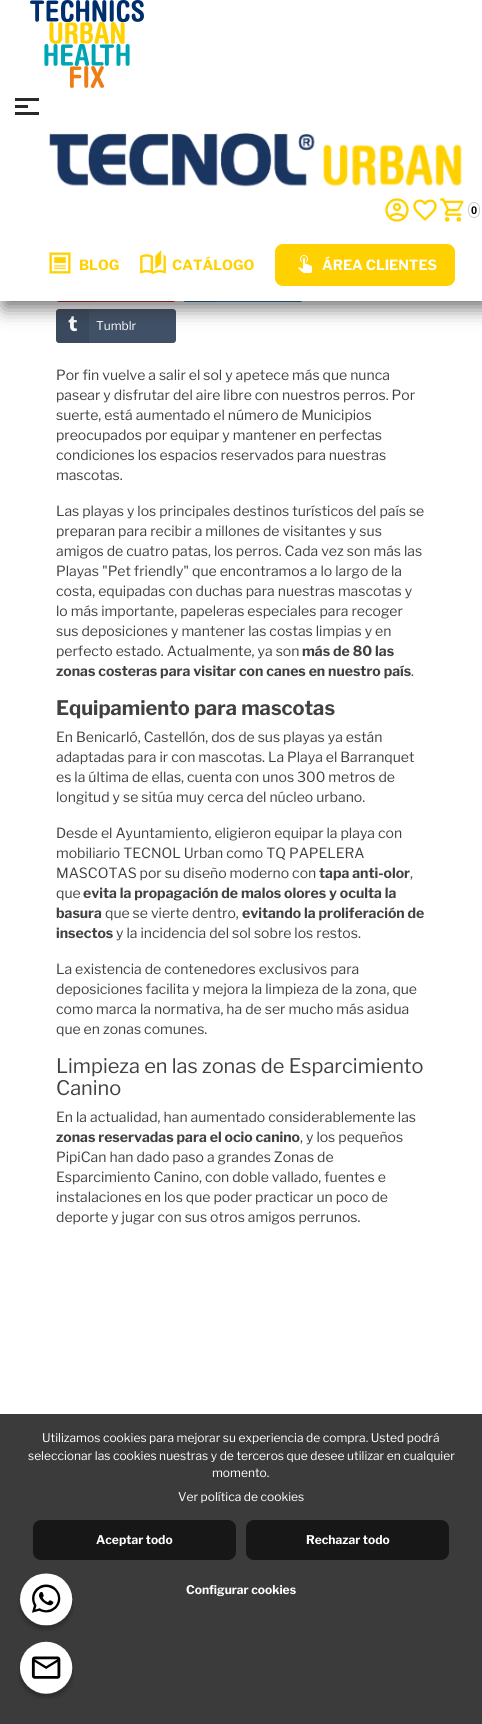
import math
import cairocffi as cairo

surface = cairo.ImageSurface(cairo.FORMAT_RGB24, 482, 1724)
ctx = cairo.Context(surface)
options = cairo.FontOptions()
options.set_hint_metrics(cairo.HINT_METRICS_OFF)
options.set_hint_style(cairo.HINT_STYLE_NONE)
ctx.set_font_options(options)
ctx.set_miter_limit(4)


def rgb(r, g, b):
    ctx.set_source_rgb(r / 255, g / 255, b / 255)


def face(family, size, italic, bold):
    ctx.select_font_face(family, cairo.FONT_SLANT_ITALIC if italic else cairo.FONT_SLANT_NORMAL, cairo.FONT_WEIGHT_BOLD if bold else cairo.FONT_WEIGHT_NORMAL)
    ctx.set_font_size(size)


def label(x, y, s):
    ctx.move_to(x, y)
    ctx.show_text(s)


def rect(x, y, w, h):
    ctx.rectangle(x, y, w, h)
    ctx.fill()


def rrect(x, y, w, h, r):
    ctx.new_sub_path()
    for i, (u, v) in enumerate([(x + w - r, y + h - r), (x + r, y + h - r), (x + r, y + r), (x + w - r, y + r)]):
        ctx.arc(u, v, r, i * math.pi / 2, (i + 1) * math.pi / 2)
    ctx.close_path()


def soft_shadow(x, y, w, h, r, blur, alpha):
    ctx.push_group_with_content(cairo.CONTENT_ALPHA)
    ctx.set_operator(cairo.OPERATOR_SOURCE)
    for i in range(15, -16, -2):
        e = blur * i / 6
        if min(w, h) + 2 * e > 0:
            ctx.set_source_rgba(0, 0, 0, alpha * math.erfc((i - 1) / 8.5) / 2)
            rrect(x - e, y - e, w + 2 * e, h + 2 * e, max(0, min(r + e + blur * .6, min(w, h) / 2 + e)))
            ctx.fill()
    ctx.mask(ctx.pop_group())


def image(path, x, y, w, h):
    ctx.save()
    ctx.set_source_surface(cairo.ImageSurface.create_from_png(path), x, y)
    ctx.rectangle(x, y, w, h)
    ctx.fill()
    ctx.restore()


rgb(255, 255, 255)
ctx.paint()
rgb(203, 32, 39)
rrect(56, 268, 120, 34, 3)
ctx.fill()
ctx.set_source_rgba(0, 0, 0, 0.1)
ctx.new_path()
ctx.move_to(59, 268)
ctx.line_to(89, 268)
ctx.line_to(89, 302)
ctx.line_to(59, 302)
ctx.curve_to(57.5, 302, 56, 300.5, 56, 299)
ctx.line_to(56, 271)
ctx.curve_to(56, 269.5, 57.5, 268, 59, 268)
ctx.close_path()
ctx.fill()
rgb(0, 119, 181)
rrect(183, 268, 120, 34, 3)
ctx.fill()
rgb(0, 106, 162)
ctx.new_path()
ctx.move_to(186, 268)
ctx.line_to(216, 268)
ctx.line_to(216, 302)
ctx.line_to(186, 302)
ctx.curve_to(184.5, 302, 183, 300.5, 183, 299)
ctx.line_to(183, 271)
ctx.curve_to(183, 269.5, 184.5, 268, 186, 268)
ctx.close_path()
ctx.fill()
rgb(64, 81, 103)
rrect(56, 309, 120, 34, 3)
ctx.fill()
ctx.set_source_rgba(0, 0, 0, 0.1)
ctx.new_path()
ctx.move_to(59, 309)
ctx.line_to(89, 309)
ctx.line_to(89, 343)
ctx.line_to(59, 343)
ctx.curve_to(57.5, 343, 56, 341.5, 56, 340)
ctx.line_to(56, 312)
ctx.curve_to(56, 310.5, 57.5, 309, 59, 309)
ctx.close_path()
ctx.fill()
image('image12.png', 68, 316, 10, 16)
rgb(39, 35, 35)
soft_shadow(4, 6, 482, 301, 0, 10, 0.7)
rgb(255, 255, 255)
rect(0, 0, 482, 301)
image('image0.png', 30, 0, 114, 22)
image('image1.png', 49, 22, 76, 22)
image('image2.png', 44, 44, 86, 22)
image('image3.png', 69, 66, 35, 22)
image('image4.png', 15, 98, 24, 17)
image('image5.png', 49, 132, 413, 55)
image('image6.png', 385, 198, 24, 24)
image('image7.png', 413, 199, 24, 22)
image('image8.png', 440, 198, 24, 24)
ctx.new_path()
ctx.move_to(474, 202.5)
ctx.curve_to(481.5, 202.5, 481.5, 217.5, 474, 217.5)
ctx.curve_to(466.5, 217.5, 466.5, 202.5, 474, 202.5)
ctx.close_path()
rgb(204, 204, 204)
ctx.set_line_width(1)
ctx.stroke()
face('Liberation Sans', 11, 0, 1)
rgb(0, 0, 0)
label(471, 214, '0')
image('image9.png', 49, 252, 22, 22)
face('Libre Franklin', 14, 0, 1)
rgb(255, 209, 0)
label(79, 270, 'BLOG')
image('image10.png', 140, 250, 26, 24)
label(172, 270, 'CATÁLOGO')
rrect(276.5, 245.5, 177, 39, 6.5)
ctx.fill_preserve()
ctx.set_line_width(3)
ctx.stroke()
image('image11.png', 298, 255, 14, 18)
rgb(255, 255, 255)
label(322, 270, 'ÁREA CLIENTES')
face('Libre Franklin', 12, 0, 0)
label(96, 330, 'Tumblr')
face('Libre Franklin', 14, 0, 0)
rgb(65, 65, 65)
label(56, 380, 'Por fin vuelve a salir el sol y apetece más que nunca')
label(56, 400, 'pasear y disfrutar del aire libre con nuestros perros. Por')
label(56, 420, 'suerte, está aumentado el número de Municipios')
label(56, 440, 'preocupados por equipar y mantener en perfectas')
label(56, 460, 'condiciones los espacios reservados para nuestras')
label(56, 480, 'mascotas.')
label(56, 516, 'Las playas y los principales destinos turísticos del país se')
label(56, 536, 'preparan para recibir a millones de visitantes y sus')
label(56, 556, 'amigos de cuatro patas, los perros. Cada vez son más las')
label(56, 576, 'Playas "Pet friendly" que encontramos a lo largo de la')
label(56, 596, 'costa, equipadas con duchas para nuestras mascotas y')
label(56, 616, 'lo más importante, papeleras especiales para recoger')
label(56, 636, 'sus deposiciones y mantener las costas limpias y en')
label(56, 656, 'perfecto estado. Actualmente, ya son')
face('Libre Franklin', 14, 0, 1)
label(302, 656, 'más de 80 las')
label(56, 676, 'zonas costeras para visitar con canes en nuestro país')
face('Libre Franklin', 14, 0, 0)
label(411, 676, '.')
face('Libre Franklin', 20, 0, 1)
label(56, 715, 'Equipamiento para mascotas')
face('Libre Franklin', 14, 0, 0)
label(56, 742, 'En Benicarló, Castellón, dos de sus playas ya están')
label(56, 762, 'adaptadas para ir con mascotas. La Playa el Barranquet')
label(56, 782, 'es la última de ellas, cuenta con unos 300 metros de')
label(56, 802, 'longitud y se sitúa muy cerca del núcleo urbano.')
label(56, 838, 'Desde el Ayuntamiento, eligieron equipar la playa con')
label(56, 858, 'mobiliario TECNOL Urban como TQ PAPELERA')
label(56, 878, 'MASCOTAS por su diseño moderno con')
face('Libre Franklin', 14, 0, 1)
label(319, 878, 'tapa anti-olor')
face('Libre Franklin', 14, 0, 0)
label(410, 878, ',')
label(56, 898, 'que')
face('Libre Franklin', 14, 0, 1)
label(83, 898, 'evita la propagación de malos olores y oculta la')
label(56, 918, 'basura')
face('Libre Franklin', 14, 0, 0)
label(105, 918, 'que se vierte dentro,')
face('Libre Franklin', 14, 0, 1)
label(242, 918, 'evitando la proliferación de')
label(56, 938, 'insectos')
face('Libre Franklin', 14, 0, 0)
label(116, 938, 'y la incidencia del sol sobre los restos.')
label(56, 974, 'La existencia de contenedores exclusivos para')
label(56, 994, 'deposiciones facilita y mejora la limpieza de la zona, que')
label(56, 1014, 'como marca la normativa, ha de ser mucho más asidua')
label(56, 1034, 'que en zonas comunes.')
face('Libre Franklin', 20, 0, 0)
label(56, 1073, 'Limpieza en las zonas de Esparcimiento')
label(56, 1095, 'Canino')
face('Libre Franklin', 14, 0, 0)
label(56, 1122, 'En la actualidad, han aumentado considerablemente las')
face('Libre Franklin', 14, 0, 1)
label(56, 1142, 'zonas reservadas para el ocio canino')
face('Libre Franklin', 14, 0, 0)
label(300, 1142, ', y los pequeños')
label(56, 1162, 'PipiCan han dado paso a grandes Zonas de')
label(56, 1182, 'Esparcimiento Canino, con doble vallado, fuentes e')
label(56, 1202, 'instalaciones en los que poder practicar un poco de')
label(56, 1222, 'deporte y jugar con sus otros amigos perrunos.')
rgb(59, 59, 59)
rect(0, 1414, 482, 310)
image('image13.png', 18, 1573, 56, 58)
image('image14.png', 18, 1641, 56, 58)
face('Libre Franklin', 12, 0, 0)
rgb(255, 255, 255)
label(42, 1442, 'Utilizamos cookies para mejorar su experiencia de compra. Usted podrá')
label(28, 1460, 'seleccionar las cookies nuestras y de terceros que desee utilizar en cualquier')
label(212, 1477, 'momento.')
label(178, 1501, 'Ver política de cookies')
rgb(23, 23, 23)
rrect(33.5, 1520.5, 202, 39, 7.5)
ctx.fill_preserve()
ctx.set_line_width(1)
ctx.stroke()
face('Libre Franklin', 12, 0, 1)
rgb(255, 255, 255)
label(96, 1544, 'Aceptar todo')
rgb(23, 23, 23)
rrect(246.5, 1520.5, 202, 39, 7.5)
ctx.fill_preserve()
ctx.stroke()
rgb(255, 255, 255)
label(306, 1544, 'Rechazar todo')
label(186, 1594, 'Configurar cookies')
surface.write_to_png('render.png')
